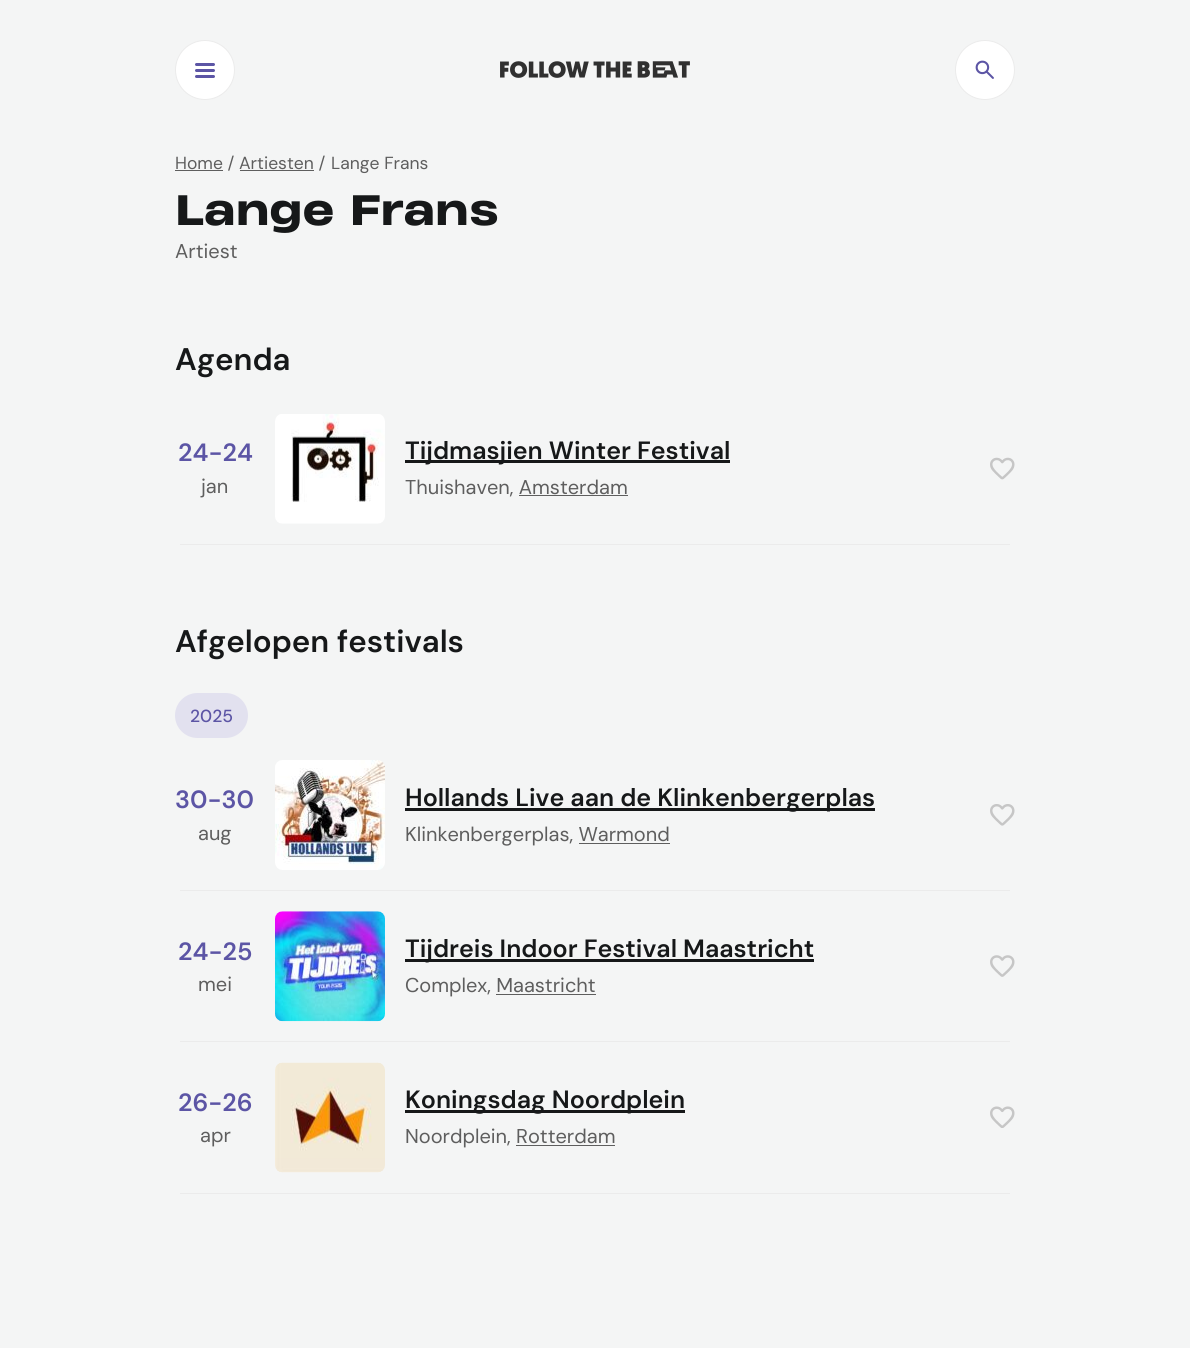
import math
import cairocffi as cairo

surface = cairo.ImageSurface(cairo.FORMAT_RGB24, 1190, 1348)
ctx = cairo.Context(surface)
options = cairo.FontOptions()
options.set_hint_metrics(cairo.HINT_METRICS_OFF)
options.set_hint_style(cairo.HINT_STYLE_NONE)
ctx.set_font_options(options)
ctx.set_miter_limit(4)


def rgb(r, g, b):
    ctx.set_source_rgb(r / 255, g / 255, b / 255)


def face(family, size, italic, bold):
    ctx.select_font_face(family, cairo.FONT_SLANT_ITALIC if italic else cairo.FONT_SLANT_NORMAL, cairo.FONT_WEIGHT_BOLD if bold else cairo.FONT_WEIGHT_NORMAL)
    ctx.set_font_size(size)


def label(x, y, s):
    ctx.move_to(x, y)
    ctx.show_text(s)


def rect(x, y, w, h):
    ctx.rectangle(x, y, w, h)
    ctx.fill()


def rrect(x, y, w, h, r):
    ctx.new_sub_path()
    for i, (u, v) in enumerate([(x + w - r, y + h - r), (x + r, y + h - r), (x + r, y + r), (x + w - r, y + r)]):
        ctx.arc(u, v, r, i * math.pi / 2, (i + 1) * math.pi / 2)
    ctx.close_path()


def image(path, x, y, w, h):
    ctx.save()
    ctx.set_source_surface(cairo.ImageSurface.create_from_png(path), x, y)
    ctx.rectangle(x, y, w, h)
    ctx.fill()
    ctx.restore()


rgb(244, 245, 245)
ctx.paint()
rgb(255, 255, 255)
ctx.arc(205, 70, 29.5, 0, 2 * math.pi)
ctx.fill_preserve()
rgb(235, 235, 235)
ctx.set_line_width(1)
ctx.stroke()
rgb(92, 85, 165)
rrect(195, 69, 20, 3, 1.5)
ctx.fill()
rrect(195, 63, 20, 3, 1.5)
ctx.fill()
rrect(195, 75, 20, 3, 1.5)
ctx.fill()
image('image0.png', 500, 61, 190, 17)
rgb(255, 255, 255)
ctx.arc(985, 70, 29.5, 0, 2 * math.pi)
ctx.fill_preserve()
rgb(235, 235, 235)
ctx.stroke()
image('image1.png', 975, 60, 19, 19)
rgb(94, 94, 94)
rect(175, 170, 48, 1)
face('DM Sans', 17.5, 0, 0)
label(175, 169, 'Home /')
rect(240, 170, 74, 1)
label(239, 169, 'Artiesten /')
label(331, 169, 'Lange Frans')
face('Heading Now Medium', 40, 0, 0)
rgb(22, 24, 25)
label(175, 225, 'Lange Frans')
face('DM Sans', 20, 0, 0)
rgb(94, 94, 94)
label(175, 258, 'Artiest')
face('DM Sans SemiBold', 31.25, 0, 0)
rgb(22, 24, 25)
label(175, 370, 'Agenda')
rgb(235, 235, 235)
rect(180, 544, 830, 1)
face('DM Sans SemiBold', 25, 0, 0)
rgb(92, 85, 165)
label(178, 461, '24-24')
face('DM Sans', 20, 0, 0)
rgb(94, 94, 94)
label(201, 493, 'jan')
image('image2.png', 275, 414, 110, 110)
rgb(22, 24, 25)
rect(405, 460, 325, 3)
face('DM Sans SemiBold', 25, 0, 0)
label(405, 459, 'Tijdmasjien Winter Festival')
face('DM Sans', 20, 0, 0)
rgb(94, 94, 94)
label(405, 494, 'Thuishaven, Amsterdam')
rect(519, 495, 109, 1)
image('image3.png', 990, 457, 25, 23)
face('DM Sans SemiBold', 31.25, 0, 0)
rgb(22, 24, 25)
label(175, 652, 'Afgelopen festivals')
rgb(226, 225, 239)
rrect(175, 693, 73, 45, 22.5)
ctx.fill()
face('DM Sans Medium', 17.5, 0, 0)
rgb(92, 85, 165)
label(190, 722, '2025')
rgb(235, 235, 235)
rect(180, 890, 830, 1)
face('DM Sans SemiBold', 25, 0, 0)
rgb(92, 85, 165)
label(175, 808, '30-30')
face('DM Sans', 20, 0, 0)
rgb(94, 94, 94)
label(198, 840, 'aug')
image('image4.png', 275, 760, 110, 110)
rgb(22, 24, 25)
rect(405, 808, 470, 3)
face('DM Sans SemiBold', 25, 0, 0)
label(405, 806, 'Hollands Live aan de Klinkenbergerplas')
face('DM Sans', 20, 0, 0)
rgb(94, 94, 94)
label(405, 841, 'Klinkenbergerplas, Warmond')
rect(579, 843, 91, 1)
image('image5.png', 990, 804, 25, 22)
rgb(235, 235, 235)
rect(180, 1041, 830, 1)
face('DM Sans SemiBold', 25, 0, 0)
rgb(92, 85, 165)
label(178, 960, '24-25')
face('DM Sans', 20, 0, 0)
rgb(94, 94, 94)
label(198, 991, 'mei')
image('image6.png', 275, 911, 110, 111)
rgb(22, 24, 25)
rect(405, 959, 409, 3)
face('DM Sans SemiBold', 25, 0, 0)
label(405, 957, 'Tijdreis Indoor Festival Maastricht')
face('DM Sans', 20, 0, 0)
rgb(94, 94, 94)
label(405, 992, 'Complex, Maastricht')
rect(496, 994, 100, 1)
image('image7.png', 990, 955, 25, 22)
rgb(235, 235, 235)
rect(180, 1193, 830, 1)
face('DM Sans SemiBold', 25, 0, 0)
rgb(92, 85, 165)
label(178, 1111, '26-26')
face('DM Sans', 20, 0, 0)
rgb(94, 94, 94)
label(200, 1142, 'apr')
image('image8.png', 275, 1062, 110, 111)
rgb(22, 24, 25)
rect(405, 1110, 280, 3)
face('DM Sans SemiBold', 25, 0, 0)
label(405, 1108, 'Koningsdag Noordplein')
face('DM Sans', 20, 0, 0)
rgb(94, 94, 94)
label(405, 1143, 'Noordplein, Rotterdam')
rect(516, 1145, 99, 1)
image('image9.png', 990, 1106, 25, 22)
surface.write_to_png('render.png')
